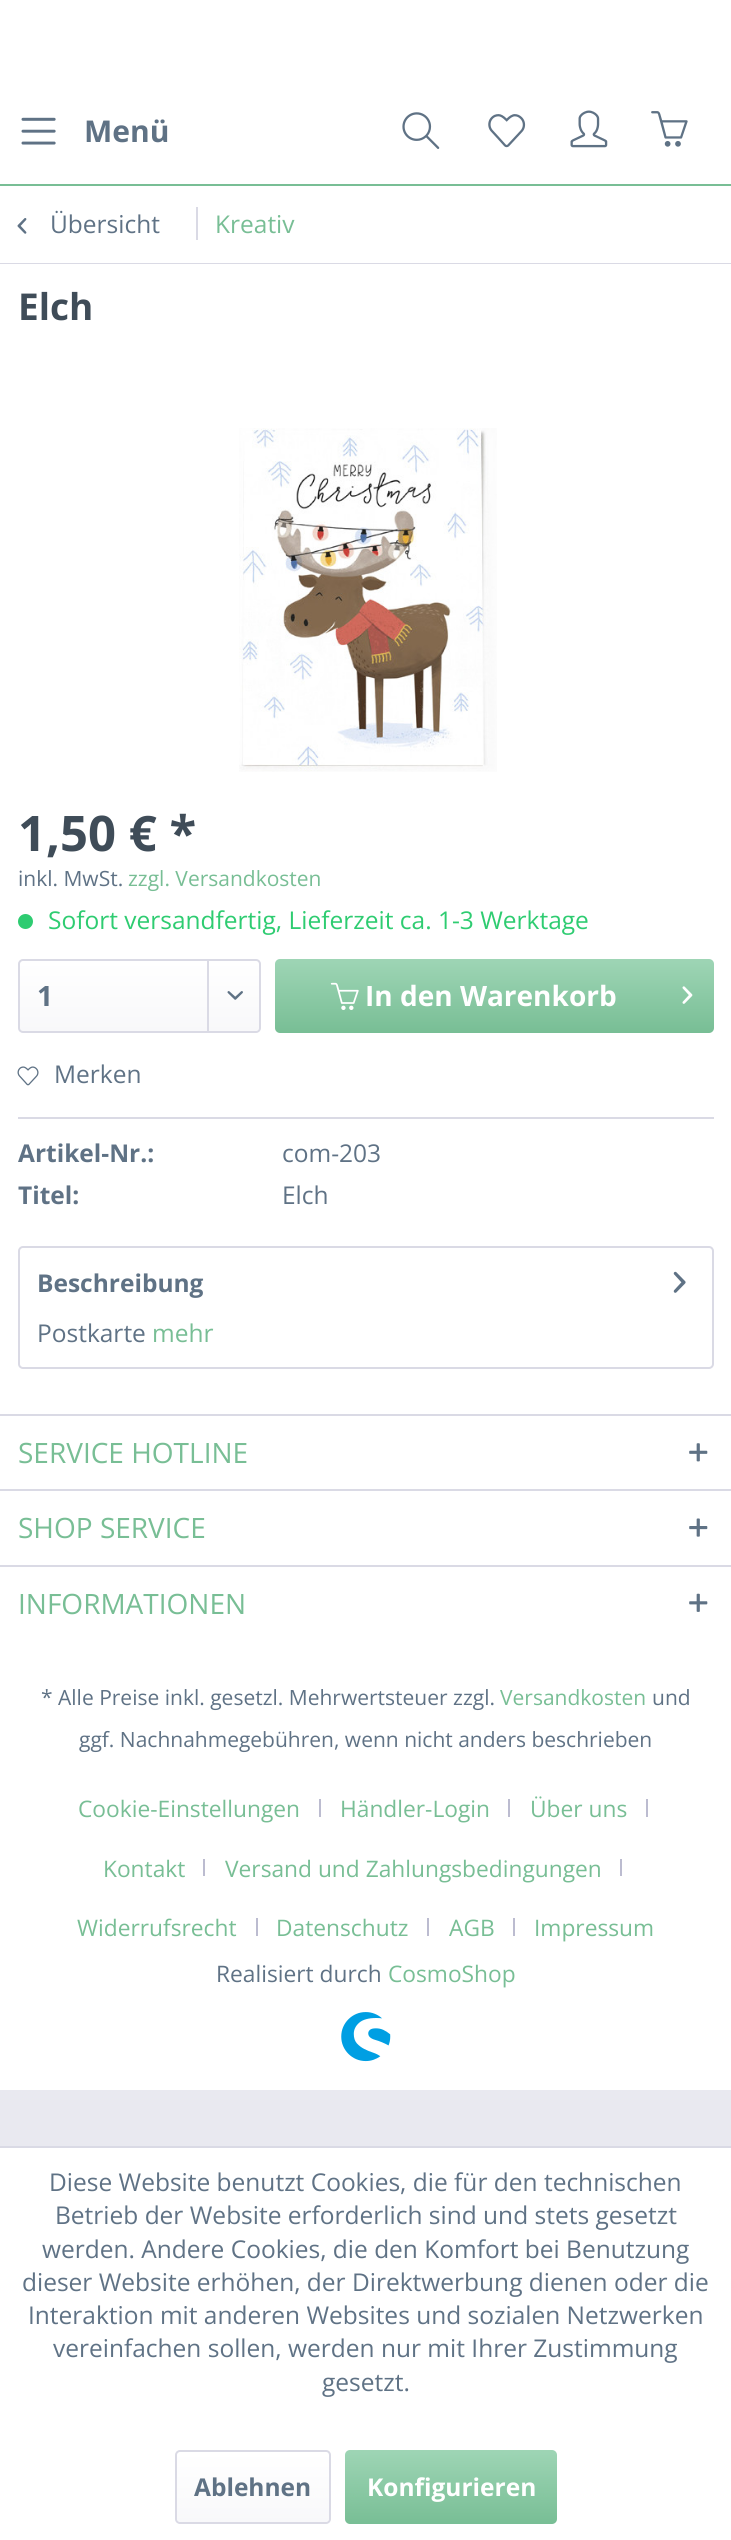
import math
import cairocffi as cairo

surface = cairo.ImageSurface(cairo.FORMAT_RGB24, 731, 2540)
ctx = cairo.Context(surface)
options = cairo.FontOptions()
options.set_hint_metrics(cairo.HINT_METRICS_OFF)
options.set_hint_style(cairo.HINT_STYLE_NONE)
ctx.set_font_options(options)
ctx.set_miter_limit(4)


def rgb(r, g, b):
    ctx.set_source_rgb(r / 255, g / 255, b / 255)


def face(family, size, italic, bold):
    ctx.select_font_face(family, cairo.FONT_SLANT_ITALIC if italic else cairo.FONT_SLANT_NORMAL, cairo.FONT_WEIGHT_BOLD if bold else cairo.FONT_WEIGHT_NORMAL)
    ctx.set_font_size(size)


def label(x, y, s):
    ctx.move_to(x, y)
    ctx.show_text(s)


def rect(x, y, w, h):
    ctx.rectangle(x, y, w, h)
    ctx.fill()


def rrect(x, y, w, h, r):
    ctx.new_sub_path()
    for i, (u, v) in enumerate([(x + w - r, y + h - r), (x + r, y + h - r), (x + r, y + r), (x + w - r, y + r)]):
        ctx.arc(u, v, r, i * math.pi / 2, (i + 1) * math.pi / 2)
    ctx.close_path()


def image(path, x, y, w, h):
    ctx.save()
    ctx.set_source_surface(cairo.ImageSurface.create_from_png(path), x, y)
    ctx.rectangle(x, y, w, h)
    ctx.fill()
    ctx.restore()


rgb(233, 233, 240)
ctx.paint()
rgb(255, 255, 255)
rect(0, 0, 731, 184)
rgb(120, 190, 149)
rect(0, 184, 731, 2)
image('image0.png', 21, 117, 35, 28)
face('Open Sans', 30, 0, 1)
rgb(95, 114, 133)
label(84, 142, 'Menü')
image('image1.png', 402, 112, 38, 37)
image('image2.png', 488, 114, 38, 34)
image('image3.png', 570, 110, 38, 38)
image('image4.png', 651, 111, 37, 36)
rgb(255, 255, 255)
rect(0, 186, 731, 77)
rgb(218, 218, 229)
rect(0, 263, 731, 1)
image('image5.png', 17, 218, 10, 16)
face('Open Sans', 24.5, 0, 0)
rgb(95, 114, 133)
label(50, 233, 'Übersicht')
rgb(218, 218, 229)
rect(196, 207, 2, 33)
rgb(120, 190, 149)
label(215, 233, 'Kreativ')
rgb(255, 255, 255)
rect(0, 264, 731, 1150)
face('Open Sans', 37, 0, 1)
rgb(63, 76, 88)
label(18, 320, 'Elch')
image('image6.png', 239, 428, 258, 344)
face('Open Sans', 49, 0, 1)
label(18, 851, '1,50 € *')
face('Open Sans', 21, 0, 0)
rgb(95, 114, 133)
label(18, 886, 'inkl. MwSt.')
rgb(120, 190, 149)
label(128, 886, 'zzgl. Versandkosten')
rgb(46, 204, 113)
ctx.new_path()
ctx.arc(25.5, 921.5, 7.5, 0, 2 * math.pi)
ctx.fill()
face('Open Sans', 24.5, 0, 0)
label(48, 929, 'Sofort versandfertig, Lieferzeit ca. 1-3 Werktage')
gradient = cairo.LinearGradient(139, 961, 139, 1031)
gradient.add_color_stop_rgba(0, 1, 1, 1, 1)
gradient.add_color_stop_rgba(1, 0.973, 0.973, 0.98, 1)
ctx.set_source(gradient)
rrect(19, 961, 240, 70, 4)
ctx.fill()
rrect(19, 960, 241, 72, 4)
rgb(218, 218, 229)
ctx.stroke()
face('Open Sans', 28, 0, 1)
rgb(95, 114, 133)
label(37, 1006, '1')
rgb(218, 218, 229)
rect(207, 961, 2, 70)
image('image7.png', 227, 991, 16, 9)
gradient = cairo.LinearGradient(494, 959, 494, 1033)
gradient.add_color_stop_rgba(0, 0.62, 0.835, 0.71, 1)
gradient.add_color_stop_rgba(1, 0.471, 0.745, 0.584, 1)
ctx.set_source(gradient)
rrect(275, 959, 439, 74, 5)
ctx.fill()
image('image8.png', 330, 982, 29, 28)
rgb(255, 255, 255)
label(365, 1006, 'In den Warenkorb')
image('image9.png', 682, 986, 11, 18)
rgb(218, 218, 229)
rect(18, 1117, 696, 2)
image('image10.png', 17, 1066, 22, 20)
face('Open Sans', 24.5, 0, 0)
rgb(95, 114, 133)
label(54, 1083, 'Merken')
face('Open Sans', 24.5, 0, 1)
label(18, 1162, 'Artikel-Nr.:')
face('Open Sans', 24.5, 0, 0)
label(282, 1162, 'com-203')
face('Open Sans', 24.5, 0, 1)
label(18, 1204, 'Titel:')
face('Open Sans', 24.5, 0, 0)
label(282, 1204, 'Elch')
rrect(19, 1247, 694, 121, 4)
rgb(218, 218, 229)
ctx.stroke()
face('Open Sans', 24.5, 0, 1)
rgb(95, 114, 133)
label(37, 1292, 'Beschreibung')
image('image11.png', 673, 1271, 13, 22)
face('Open Sans', 24.5, 0, 0)
label(37, 1342, 'Postkarte')
rgb(120, 190, 149)
label(152, 1342, 'mehr')
rgb(255, 255, 255)
rect(0, 1416, 731, 674)
rgb(218, 218, 229)
rect(0, 1414, 731, 2)
face('Open Sans', 28, 0, 0)
rgb(120, 190, 149)
label(18, 1463, 'SERVICE HOTLINE')
image('image12.png', 689, 1443, 19, 19)
rgb(218, 218, 229)
rect(0, 1489, 731, 2)
rgb(120, 190, 149)
label(18, 1538, 'SHOP SERVICE')
image('image13.png', 689, 1518, 19, 19)
rgb(218, 218, 229)
rect(0, 1565, 731, 2)
rgb(120, 190, 149)
label(18, 1614, 'INFORMATIONEN')
image('image14.png', 689, 1593, 19, 19)
face('Open Sans', 21, 0, 0)
rgb(95, 114, 133)
label(41, 1705, '* Alle Preise inkl. gesetzl. Mehrwertsteuer zzgl.')
rgb(120, 190, 149)
label(500, 1705, 'Versandkosten')
rgb(95, 114, 133)
label(652, 1705, 'und')
label(79, 1747, 'ggf. Nachnahmegebühren, wenn nicht anders beschrieben')
face('Open Sans', 22.75, 0, 0)
rgb(120, 190, 149)
label(78, 1817, 'Cookie-Einstellungen')
rgb(188, 188, 208)
rect(319, 1799, 2, 18)
rgb(120, 190, 149)
label(340, 1817, 'Händler-Login')
rgb(188, 188, 208)
rect(508, 1799, 2, 18)
rgb(120, 190, 149)
label(530, 1817, 'Über uns')
rgb(188, 188, 208)
rect(646, 1799, 2, 18)
rgb(120, 190, 149)
label(103, 1877, 'Kontakt')
rgb(188, 188, 208)
rect(203, 1859, 2, 17)
rgb(120, 190, 149)
label(225, 1877, 'Versand und Zahlungsbedingungen')
rgb(188, 188, 208)
rect(620, 1859, 2, 17)
rgb(120, 190, 149)
label(77, 1936, 'Widerrufsrecht')
rgb(188, 188, 208)
rect(256, 1918, 2, 18)
rgb(120, 190, 149)
label(276, 1936, 'Datenschutz')
rgb(188, 188, 208)
rect(427, 1918, 2, 18)
rgb(120, 190, 149)
label(449, 1936, 'AGB')
rgb(188, 188, 208)
rect(513, 1918, 2, 18)
rgb(120, 190, 149)
label(534, 1936, 'Impressum')
rgb(95, 114, 133)
label(216, 1982, 'Realisiert durch')
rgb(120, 190, 149)
label(388, 1982, 'CosmoShop')
image('image15.png', 341, 2012, 50, 50)
rgb(255, 255, 255)
rect(0, 2148, 731, 392)
rgb(218, 218, 229)
rect(0, 2146, 731, 2)
face('Open Sans', 24.5, 0, 0)
rgb(95, 114, 133)
label(49, 2191, 'Diese Website benutzt Cookies, die für den technischen')
label(55, 2224, 'Betrieb der Website erforderlich sind und stets gesetzt')
label(42, 2258, 'werden. Andere Cookies, die den Komfort bei Benutzung')
label(22, 2291, 'dieser Website erhöhen, der Direktwerbung dienen oder die')
label(28, 2324, 'Interaktion mit anderen Websites und sozialen Netzwerken')
label(53, 2357, 'vereinfachen sollen, werden nur mit Ihrer Zustimmung')
label(322, 2391, 'gesetzt.')
gradient = cairo.LinearGradient(253, 2452, 253, 2522)
gradient.add_color_stop_rgba(0, 1, 1, 1, 1)
gradient.add_color_stop_rgba(1, 0.973, 0.973, 0.98, 1)
ctx.set_source(gradient)
rrect(177, 2452, 152, 70, 4)
ctx.fill()
rrect(176, 2451, 154, 72, 4)
rgb(218, 218, 229)
ctx.stroke()
face('Open Sans', 24.5, 0, 1)
rgb(95, 114, 133)
label(194, 2496, 'Ablehnen')
gradient = cairo.LinearGradient(451, 2450, 451, 2524)
gradient.add_color_stop_rgba(0, 0.62, 0.835, 0.71, 1)
gradient.add_color_stop_rgba(1, 0.471, 0.745, 0.584, 1)
ctx.set_source(gradient)
rrect(345, 2450, 212, 74, 5)
ctx.fill()
rgb(255, 255, 255)
label(367, 2496, 'Konfigurieren')
surface.write_to_png('render.png')
